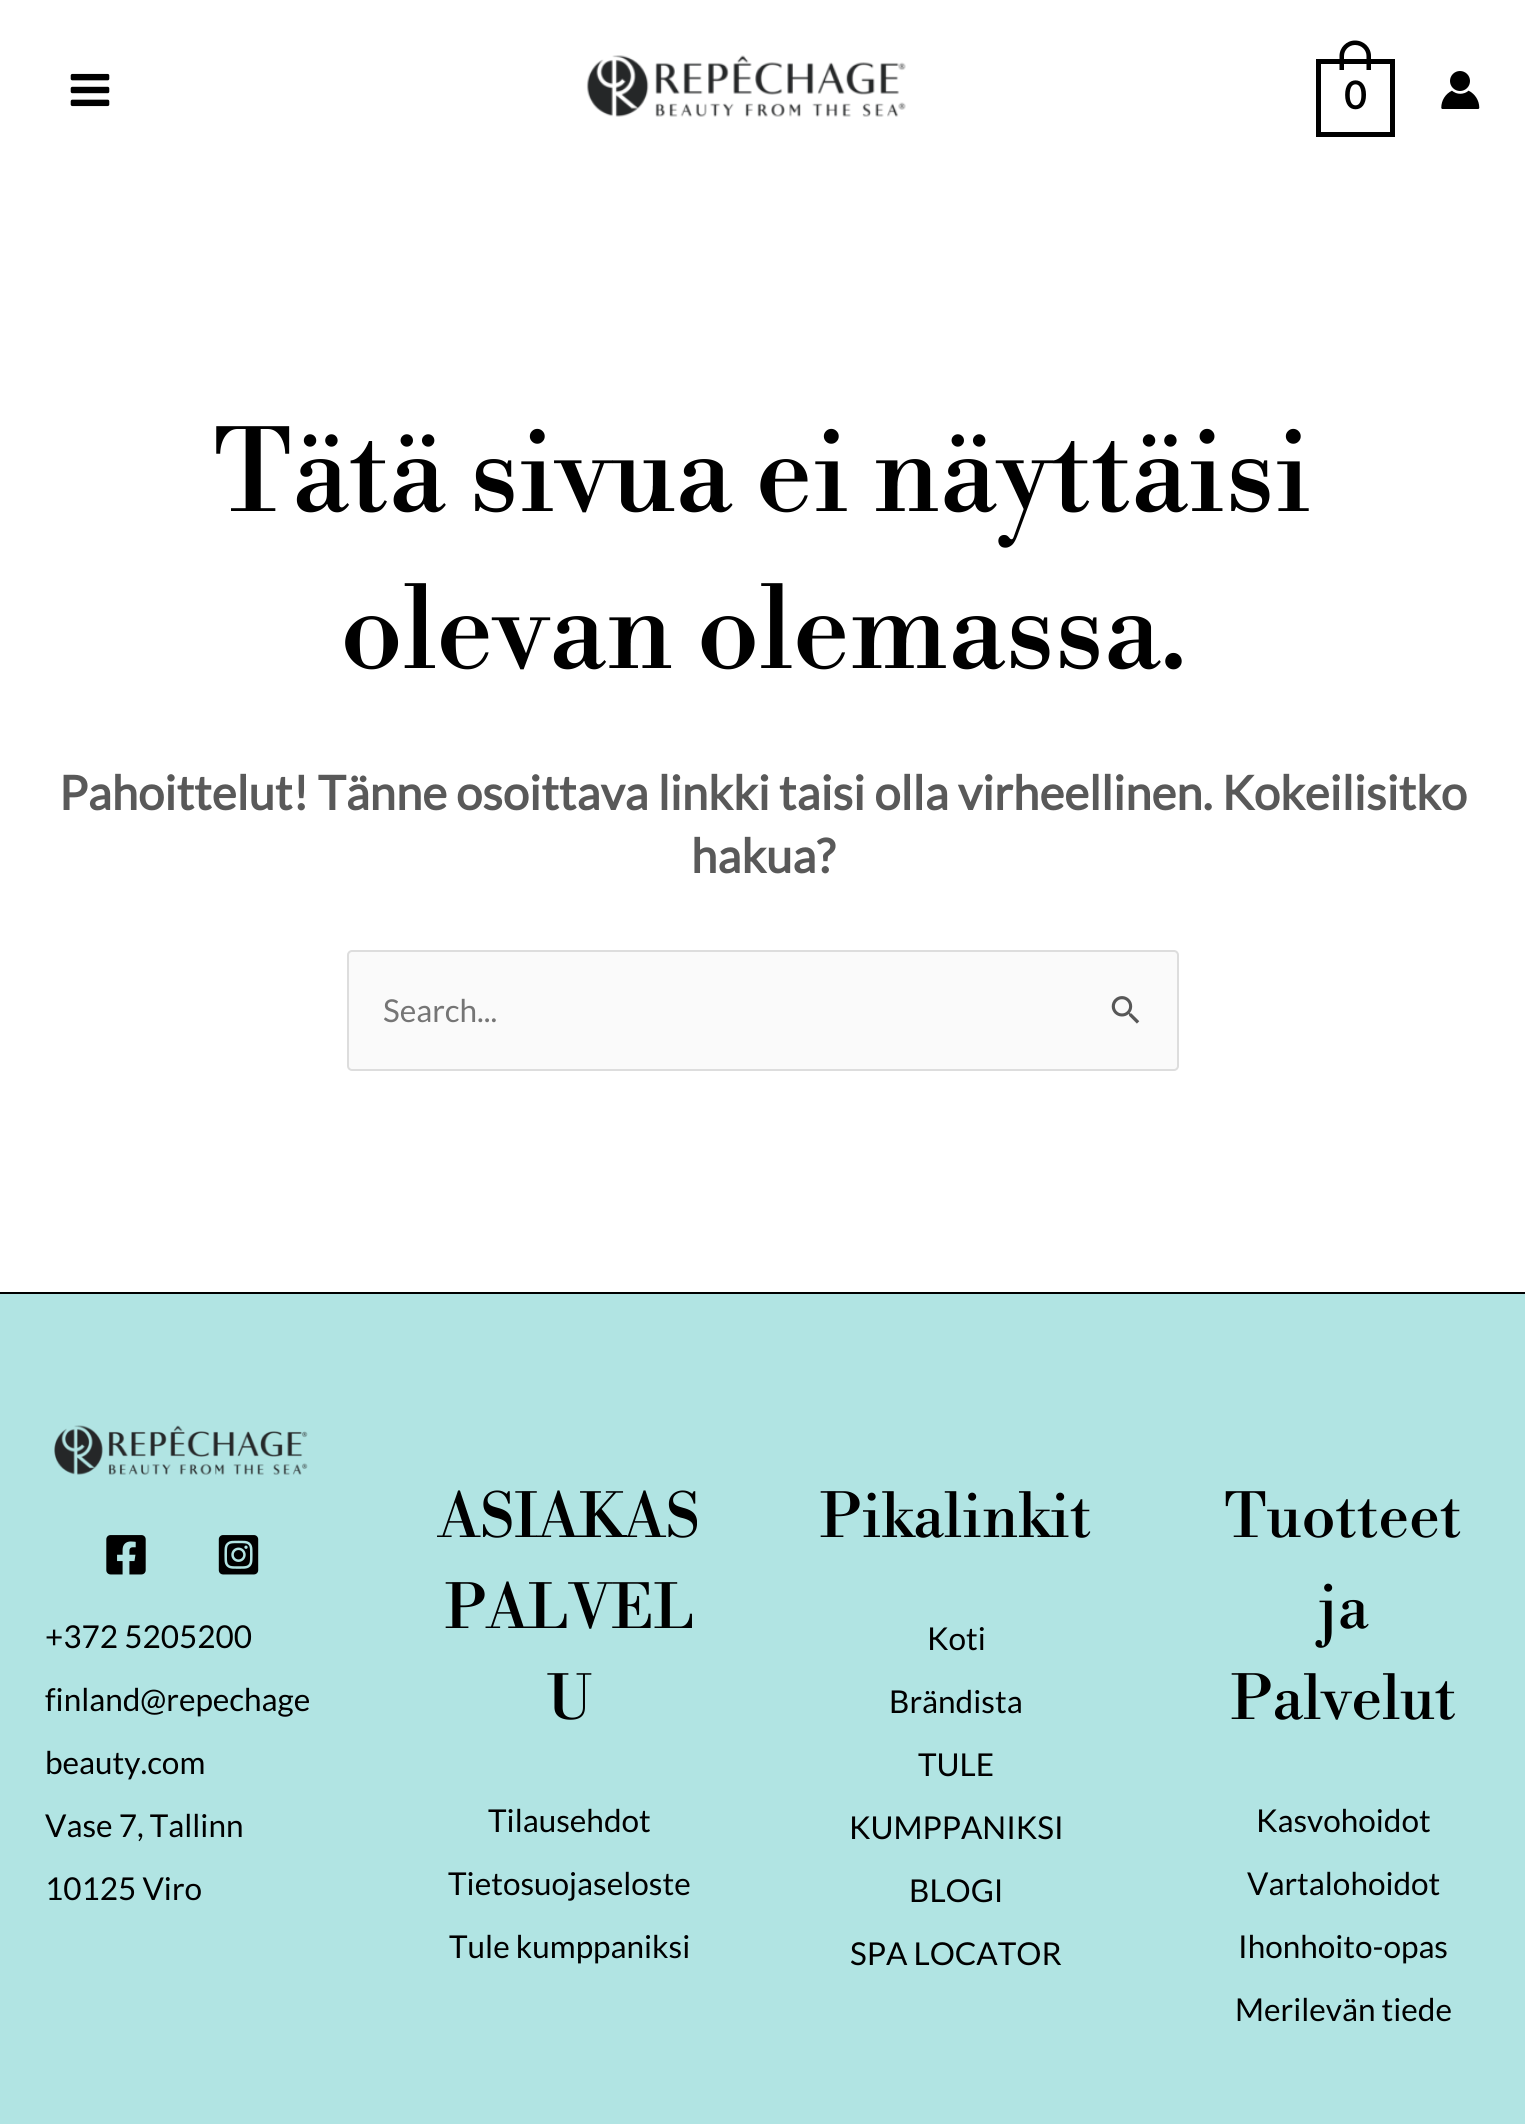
import math
import cairocffi as cairo

surface = cairo.ImageSurface(cairo.FORMAT_RGB24, 1525, 2124)
ctx = cairo.Context(surface)
options = cairo.FontOptions()
options.set_hint_metrics(cairo.HINT_METRICS_OFF)
options.set_hint_style(cairo.HINT_STYLE_NONE)
ctx.set_font_options(options)
ctx.set_miter_limit(4)


def rgb(r, g, b):
    ctx.set_source_rgb(r / 255, g / 255, b / 255)


def face(family, size, italic, bold):
    ctx.select_font_face(family, cairo.FONT_SLANT_ITALIC if italic else cairo.FONT_SLANT_NORMAL, cairo.FONT_WEIGHT_BOLD if bold else cairo.FONT_WEIGHT_NORMAL)
    ctx.set_font_size(size)


def label(x, y, s):
    ctx.move_to(x, y)
    ctx.show_text(s)


def rect(x, y, w, h):
    ctx.rectangle(x, y, w, h)
    ctx.fill()


def rrect(x, y, w, h, r):
    ctx.new_sub_path()
    for i, (u, v) in enumerate([(x + w - r, y + h - r), (x + r, y + h - r), (x + r, y + r), (x + w - r, y + r)]):
        ctx.arc(u, v, r, i * math.pi / 2, (i + 1) * math.pi / 2)
    ctx.close_path()


def image(path, x, y, w, h):
    ctx.save()
    ctx.set_source_surface(cairo.ImageSurface.create_from_png(path), x, y)
    ctx.rectangle(x, y, w, h)
    ctx.fill()
    ctx.restore()


rgb(255, 255, 255)
ctx.paint()
image('image0.png', 70, 73, 40, 34)
image('image1.png', 586, 55, 320, 62)
ctx.rectangle(1318.5, 61.5, 74, 73)
rgb(0, 0, 0)
ctx.set_line_width(5)
ctx.stroke()
ctx.set_fill_rule(cairo.FILL_RULE_EVEN_ODD)
ctx.new_path()
ctx.move_to(1355, 40.5)
ctx.curve_to(1364, 40.5, 1371, 47.5, 1371, 56)
ctx.line_to(1371, 70)
ctx.line_to(1339.5, 70)
ctx.line_to(1339.5, 56)
ctx.curve_to(1339.5, 47.5, 1346.5, 40.5, 1355, 40.5)
ctx.close_path()
ctx.move_to(1355, 45)
ctx.curve_to(1361.5, 45, 1366.5, 50, 1366.5, 56)
ctx.line_to(1366.5, 70)
ctx.line_to(1344, 70)
ctx.line_to(1344, 56)
ctx.curve_to(1344, 50, 1349, 45, 1355, 45)
ctx.close_path()
ctx.fill()
face('Lato', 38, 0, 1)
label(1344, 109, '0')
image('image2.png', 1441, 71, 39, 38)
face('Libre Bodoni', 112.5, 0, 0)
label(213, 511, 'Tätä sivua ei näyttäisi')
label(340, 668, 'olevan olemassa.')
face('Lato', 47.25, 0, 1)
rgb(89, 89, 89)
label(59, 810, 'Pahoittelut! Tänne osoittava linkki taisi olla virheellinen. Kokeilisitko')
label(691, 873, 'hakua?')
rgb(250, 250, 250)
rrect(348, 951, 830, 119, 4)
ctx.fill_preserve()
rgb(221, 221, 221)
ctx.set_line_width(2)
ctx.stroke()
face('Lato', 31.5, 0, 0)
rgb(117, 117, 117)
label(383, 1022, 'Search...')
image('image3.png', 1111, 996, 29, 28)
rgb(177, 228, 227)
rect(0, 1294, 1525, 830)
rgb(0, 0, 0)
rect(0, 1292, 1525, 2)
image('image4.png', 54, 1425, 254, 50)
image('image5.png', 106, 1535, 40, 40)
image('image6.png', 218, 1535, 41, 40)
label(45, 1648, '+372 5205200')
label(45, 1711, 'finland@repechage')
label(45, 1774, 'beauty.com')
label(45, 1837, 'Vase 7, Tallinn')
label(45, 1900, '10125 Viro')
face('Libre Bodoni', 60.75, 0, 0)
label(438, 1537, 'ASIAKAS')
label(445, 1628, 'PALVEL')
label(547, 1719, 'U')
face('Lato', 31.5, 0, 0)
label(488, 1832, 'Tilausehdot')
label(448, 1895, 'Tietosuojaseloste')
label(449, 1958, 'Tule kumppaniksi')
face('Libre Bodoni', 60.75, 0, 0)
label(820, 1537, 'Pikalinkit')
face('Lato', 31.5, 0, 0)
label(927, 1650, 'Koti')
label(889, 1713, 'Brändista')
label(918, 1776, 'TULE')
label(849, 1839, 'KUMPPANIKSI')
label(909, 1902, 'BLOGI')
label(850, 1965, 'SPA LOCATOR')
face('Libre Bodoni', 60.75, 0, 0)
label(1224, 1537, 'Tuotteet')
label(1318, 1628, 'ja')
label(1231, 1719, 'Palvelut')
face('Lato', 31.5, 0, 0)
label(1256, 1832, 'Kasvohoidot')
label(1247, 1895, 'Vartalohoidot')
label(1238, 1958, 'Ihonhoito-opas')
label(1235, 2021, 'Merilevän tiede')
surface.write_to_png('render.png')
